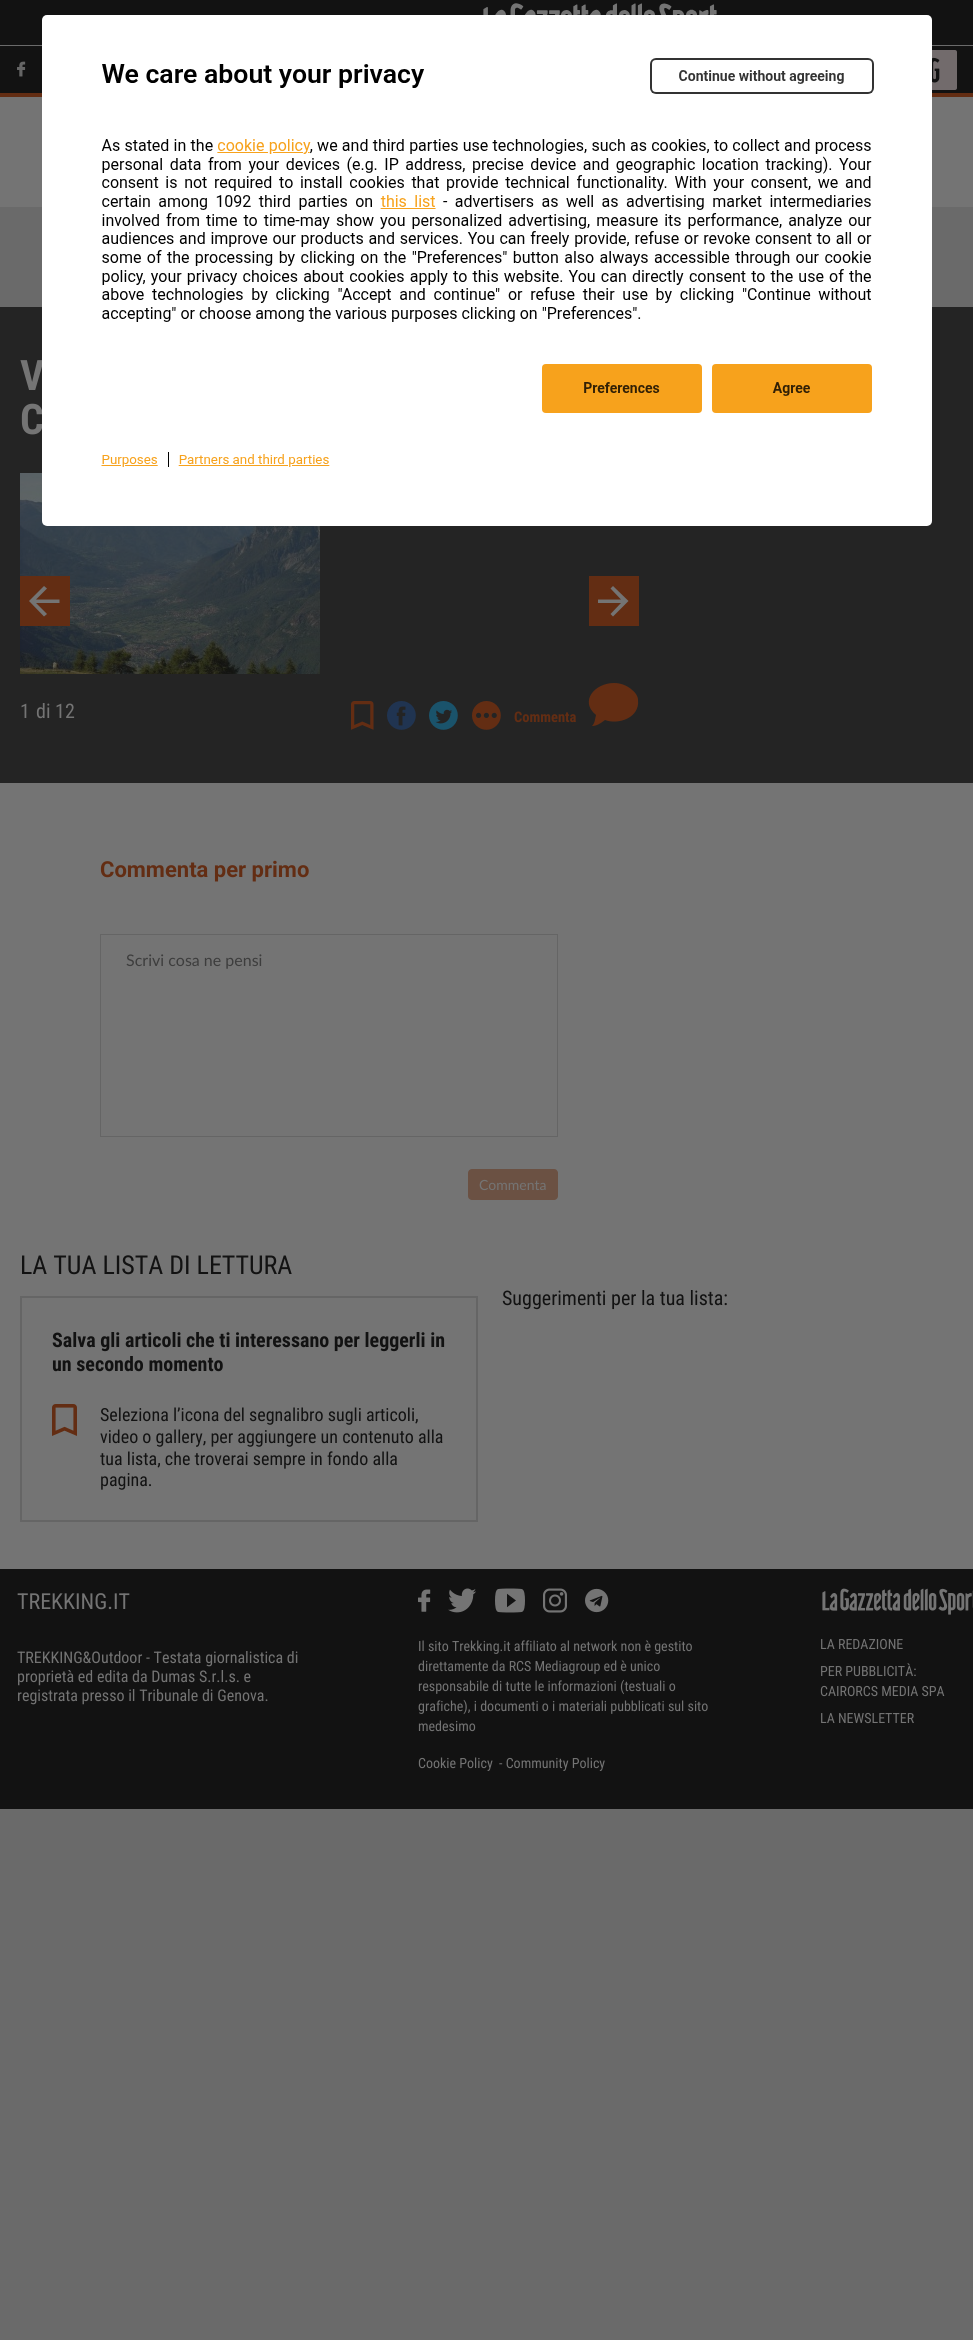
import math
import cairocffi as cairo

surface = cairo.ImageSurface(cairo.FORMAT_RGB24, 973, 2340)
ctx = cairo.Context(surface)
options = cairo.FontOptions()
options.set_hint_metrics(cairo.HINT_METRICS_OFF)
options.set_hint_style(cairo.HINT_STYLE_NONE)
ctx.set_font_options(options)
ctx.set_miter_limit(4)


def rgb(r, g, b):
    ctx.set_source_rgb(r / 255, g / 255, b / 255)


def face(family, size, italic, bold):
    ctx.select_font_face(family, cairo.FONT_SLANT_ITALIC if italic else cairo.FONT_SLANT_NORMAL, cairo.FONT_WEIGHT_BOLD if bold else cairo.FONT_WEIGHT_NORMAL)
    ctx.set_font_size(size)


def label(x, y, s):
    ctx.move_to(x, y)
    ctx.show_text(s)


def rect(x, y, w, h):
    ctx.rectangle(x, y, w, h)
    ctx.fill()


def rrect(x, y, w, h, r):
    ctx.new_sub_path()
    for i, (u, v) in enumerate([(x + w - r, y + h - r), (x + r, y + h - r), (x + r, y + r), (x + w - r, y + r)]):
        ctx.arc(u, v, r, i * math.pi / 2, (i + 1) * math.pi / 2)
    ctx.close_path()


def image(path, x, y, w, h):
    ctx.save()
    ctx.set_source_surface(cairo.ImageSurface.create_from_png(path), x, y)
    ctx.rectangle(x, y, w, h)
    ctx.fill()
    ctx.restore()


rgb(106, 106, 106)
ctx.paint()
rgb(18, 18, 18)
rect(0, 0, 973, 45)
image('image0.png', 483, 3, 234, 12)
rect(0, 46, 973, 47)
image('image1.png', 17, 61, 9, 16)
rgb(114, 107, 108)
rrect(914, 50, 43, 40, 2)
ctx.fill()
image('image2.png', 932, 57, 8, 26)
rgb(116, 116, 116)
rect(0, 97, 973, 110)
rgb(99, 45, 19)
rect(0, 93, 973, 4)
rgb(36, 36, 36)
rect(0, 307, 973, 476)
face('Roboto Condensed', 42, 0, 1)
rgb(116, 116, 116)
label(20, 390, 'V')
label(20, 434, 'C')
image('image4.png', 20, 473, 300, 201)
image('image3.png', 42, 15, 890, 511)
rgb(99, 45, 19)
rect(20, 576, 50, 50)
rgb(116, 116, 116)
ctx.new_path()
ctx.move_to(44, 616.5)
ctx.line_to(47, 614)
ctx.line_to(36, 603)
ctx.line_to(59.5, 603)
ctx.line_to(59.5, 599.5)
ctx.line_to(36, 599.5)
ctx.line_to(47, 588.5)
ctx.line_to(44, 586)
ctx.line_to(29, 601)
ctx.close_path()
ctx.fill()
rgb(99, 45, 19)
rect(589, 576, 50, 50)
rgb(116, 116, 116)
ctx.new_path()
ctx.move_to(613, 616.5)
ctx.line_to(610.5, 614)
ctx.line_to(621, 603)
ctx.line_to(598, 603)
ctx.line_to(598, 599.5)
ctx.line_to(621, 599.5)
ctx.line_to(610.5, 588.5)
ctx.line_to(613, 586)
ctx.line_to(628.5, 601)
ctx.close_path()
ctx.fill()
face('Roboto Condensed', 20, 0, 0)
label(20, 718, '1')
label(36, 718, 'di 12')
image('image5.png', 351, 701, 23, 29)
image('image6.png', 387, 701, 29, 29)
image('image7.png', 429, 701, 29, 29)
image('image8.png', 472, 701, 29, 29)
face('Roboto Condensed', 14.5, 0, 1)
rgb(99, 45, 19)
label(514, 722, 'Commenta')
ctx.new_path()
ctx.move_to(614, 683)
ctx.curve_to(595, 683, 579, 701, 596, 715)
ctx.curve_to(595, 719, 595, 723, 592, 726)
ctx.curve_to(597, 726, 601, 723, 605, 720)
ctx.curve_to(618, 725, 640, 718, 638, 700)
ctx.curve_to(638, 696, 635, 692, 631, 689)
ctx.curve_to(626, 685, 620, 683, 614, 683)
ctx.close_path()
ctx.fill()
rgb(116, 116, 116)
rect(0, 783, 973, 786)
face('Roboto', 22, 0, 1)
rgb(99, 45, 19)
label(100, 877, 'Commenta per primo')
ctx.rectangle(100.5, 934.5, 457, 202)
rgb(101, 101, 101)
ctx.set_line_width(1)
ctx.stroke()
face('Lato', 16, 0, 0)
rgb(61, 61, 61)
label(126, 966, 'Scrivi cosa ne pensi')
rgb(107, 81, 67)
rrect(468, 1169, 90, 31, 4)
ctx.fill()
face('Lato', 14, 0, 0)
rgb(116, 116, 116)
label(479, 1190, 'Commenta')
face('Roboto Condensed', 26, 0, 0)
rgb(18, 18, 18)
label(20, 1274, 'LA TUA LISTA DI LETTURA')
face('Roboto Condensed', 20, 0, 0)
label(502, 1305, 'Suggerimenti per la tua lista:')
ctx.rectangle(21, 1297, 456, 224)
rgb(101, 101, 101)
ctx.set_line_width(2)
ctx.stroke()
face('Roboto Condensed', 20, 0, 1)
rgb(18, 18, 18)
label(52, 1347, 'Salva gli articoli che ti interessano per leggerli in')
label(52, 1371, 'un secondo momento')
image('image9.png', 52, 1404, 25, 32)
face('Roboto Condensed', 18, 0, 0)
label(100, 1421, 'Seleziona l’icona del segnalibro sugli articoli,')
label(100, 1443, 'video o gallery, per aggiungere un contenuto alla')
label(100, 1465, 'tua lista, che troverai sempre in fondo alla')
label(100, 1486, 'pagina.')
rect(0, 1569, 973, 240)
face('Roboto Condensed', 22, 0, 0)
rgb(116, 116, 116)
label(17, 1609, 'TREKKING.IT')
face('Roboto Condensed', 16, 0, 0)
label(17, 1663, 'TREKKING&Outdoor - Testata giornalistica di')
label(17, 1682, 'proprietà ed edita da Dumas S.r.l.s. e')
label(17, 1701, 'registrata presso il Tribunale di Genova.')
image('image10.png', 418, 1589, 13, 23)
image('image11.png', 448, 1588, 28, 25)
image('image12.png', 495, 1588, 30, 25)
image('image13.png', 543, 1588, 24, 25)
image('image14.png', 585, 1588, 24, 25)
face('Roboto Condensed', 14, 0, 0)
label(418, 1651, 'Il sito Trekking.it affiliato al network non è gestito')
label(418, 1671, 'direttamente da RCS Mediagroup ed è unico')
label(418, 1691, 'responsabile di tutte le informazioni (testuali o')
label(418, 1711, 'grafiche), i documenti o i materiali pubblicati sul sito')
label(418, 1731, 'medesimo')
label(418, 1768, 'Cookie Policy')
label(499, 1768, '- Community Policy')
image('image15.png', 822, 1588, 151, 27)
label(820, 1649, 'LA REDAZIONE')
label(820, 1676, 'PER PUBBLICITÀ:')
label(820, 1696, 'CAIRORCS MEDIA SPA')
label(820, 1723, 'LA NEWSLETTER')
surface.write_to_png('render.png')
